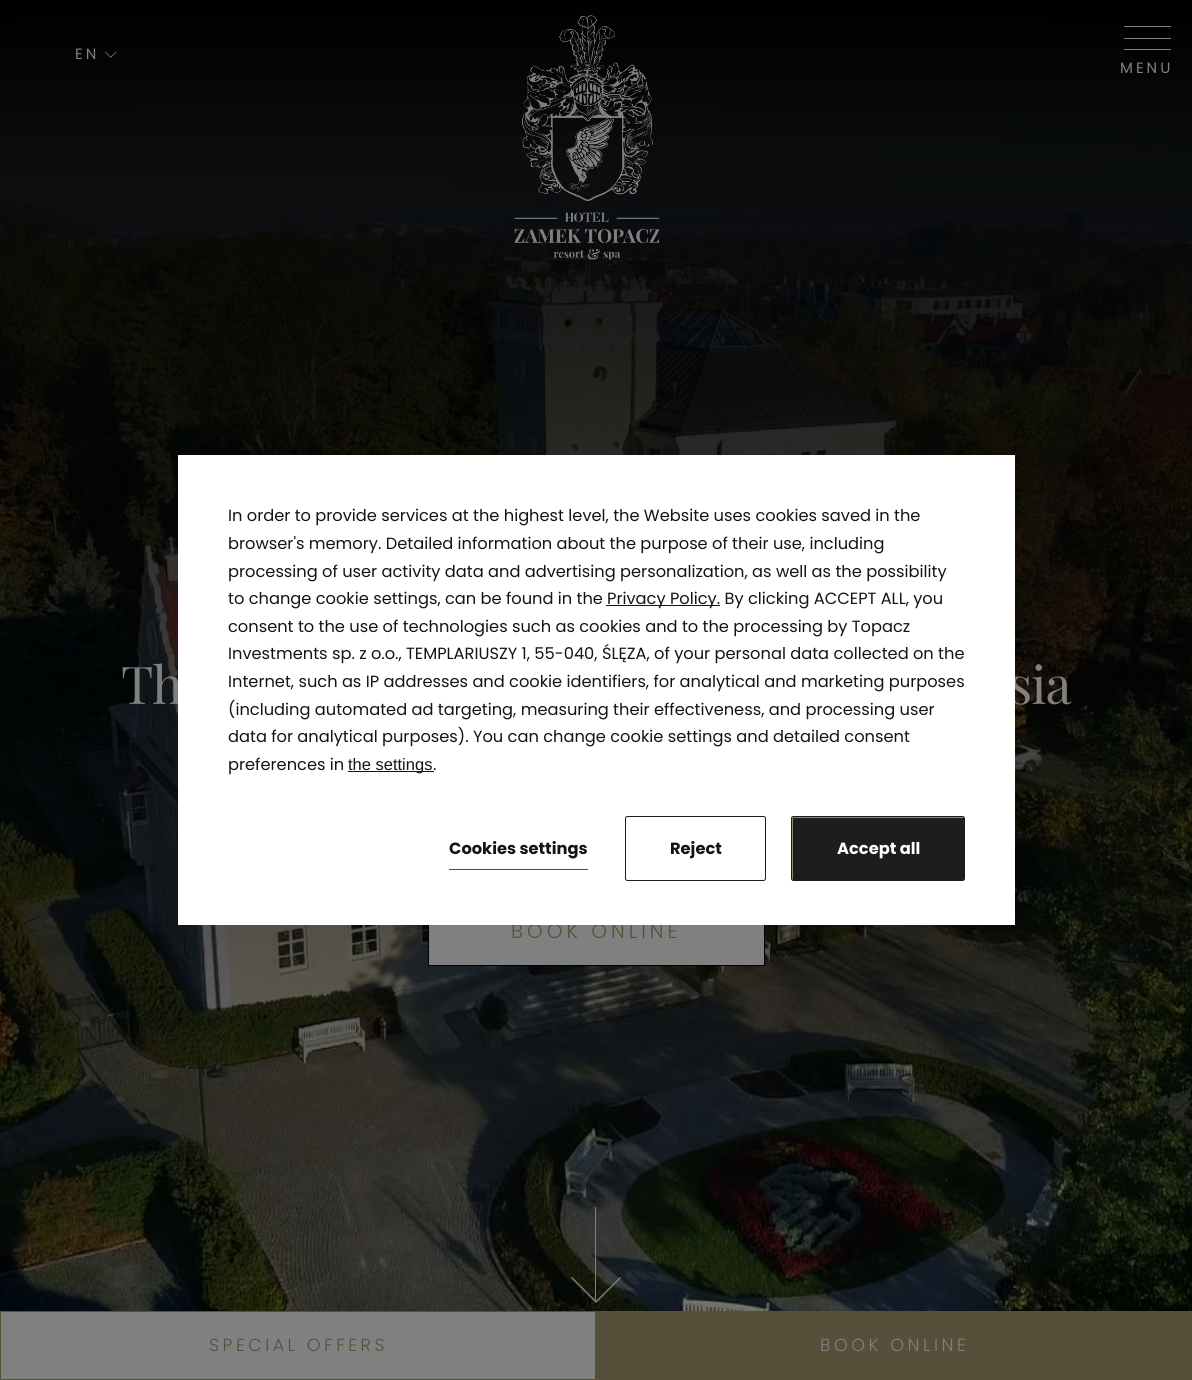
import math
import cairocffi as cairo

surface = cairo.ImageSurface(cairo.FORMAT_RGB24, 1192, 1380)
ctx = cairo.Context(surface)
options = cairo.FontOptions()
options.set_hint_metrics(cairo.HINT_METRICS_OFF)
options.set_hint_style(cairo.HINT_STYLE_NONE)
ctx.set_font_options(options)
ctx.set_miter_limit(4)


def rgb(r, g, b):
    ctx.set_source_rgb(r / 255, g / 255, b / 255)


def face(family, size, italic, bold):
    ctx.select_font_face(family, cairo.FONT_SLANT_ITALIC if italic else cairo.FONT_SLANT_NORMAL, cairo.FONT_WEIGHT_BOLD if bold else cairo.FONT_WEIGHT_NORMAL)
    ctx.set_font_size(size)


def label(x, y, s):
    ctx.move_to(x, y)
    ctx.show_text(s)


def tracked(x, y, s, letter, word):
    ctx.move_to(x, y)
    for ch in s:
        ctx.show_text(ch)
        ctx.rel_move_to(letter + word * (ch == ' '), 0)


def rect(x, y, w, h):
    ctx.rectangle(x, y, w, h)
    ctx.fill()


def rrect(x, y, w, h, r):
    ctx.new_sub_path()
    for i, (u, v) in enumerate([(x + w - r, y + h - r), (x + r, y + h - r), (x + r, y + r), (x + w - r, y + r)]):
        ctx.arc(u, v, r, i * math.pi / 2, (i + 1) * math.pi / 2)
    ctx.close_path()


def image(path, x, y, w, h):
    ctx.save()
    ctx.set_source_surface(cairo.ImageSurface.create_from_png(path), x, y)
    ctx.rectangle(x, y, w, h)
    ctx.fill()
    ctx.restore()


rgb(255, 255, 255)
ctx.paint()
image('image2.png', 0, 0, 1192, 1311)
image('image0.png', 514, 15, 146, 245)
face('Poppins', 15, 0, 0)
rgb(128, 128, 128)
tracked(75, 59, 'EN', 3, 0)
image('image1.png', 105, 51, 12, 7)
rect(1124, 26, 47, 1)
rect(1124, 38, 47, 1)
rect(1124, 49, 47, 1)
tracked(1120, 73, 'MENU', 3, 0)
face('Playfair Display', 52, 0, 0)
tracked(121, 704, 'Th', -1, 0)
tracked(1009, 704, 'sia', -1, 0)
rect(429, 925, 335, 40)
ctx.rectangle(428.5, 898.5, 336, 67)
rgb(0, 0, 0)
ctx.set_line_width(1)
ctx.stroke()
face('Poppins Light', 20, 0, 0)
rgb(86, 80, 59)
tracked(511, 938, 'BOOK ONLINE', 4, 0)
rgb(128, 128, 128)
ctx.new_path()
ctx.move_to(572, 1277)
ctx.line_to(596, 1301)
ctx.line_to(620, 1277)
ctx.line_to(621, 1278)
ctx.line_to(596, 1303)
ctx.line_to(571, 1278)
ctx.close_path()
ctx.move_to(595, 1302)
ctx.line_to(595, 1207)
ctx.line_to(596, 1207)
ctx.line_to(596, 1302)
ctx.close_path()
ctx.fill()
rgb(255, 255, 255)
rect(178, 455, 837, 470)
face('Poppins', 16.25, 0, 0)
rgb(20, 20, 22)
label(228, 521, 'In order to provide services at the highest level, the Website uses cookies saved in the')
label(228, 549, 'browser\'s memory. Detailed information about the purpose of their use, including')
label(228, 577, 'processing of user activity data and advertising personalization, as well as the possibility')
label(228, 604, 'to change cookie settings, can be found in the')
rect(606, 605, 114, 1)
label(607, 604, 'Privacy Policy. By clicking ACCEPT ALL, you')
label(228, 632, 'consent to the use of technologies such as cookies and to the processing by Topacz')
label(228, 659, 'Investments sp. z o.o., TEMPLARIUSZY 1, 55-040, ŚLĘZA, of your personal data collected on the')
label(228, 687, 'Internet, such as IP addresses and cookie identifiers, for analytical and marketing purposes')
label(228, 715, '(including automated ad targeting, measuring their effectiveness, and processing user')
label(228, 742, 'data for analytical purposes). You can change cookie settings and detailed consent')
label(228, 770, 'preferences in')
rect(348, 771, 86, 1)
face('Liberation Sans', 16.5, 0, 0)
label(348, 770, 'the settings')
face('Poppins', 16.25, 0, 0)
label(433, 770, '.')
face('Poppins', 16.25, 0, 1)
label(449, 854, 'Cookies settings')
rgb(74, 74, 73)
rect(449, 869, 139, 1)
rrect(625.5, 816.5, 140, 64, 2)
rgb(29, 29, 27)
ctx.stroke()
rgb(20, 20, 22)
label(670, 854, 'Reject')
rgb(147, 135, 103)
rrect(791.5, 816.5, 173, 64, 2)
ctx.fill_preserve()
rgb(29, 29, 27)
ctx.stroke()
rect(793, 818, 171, 62)
rgb(255, 255, 255)
label(837, 854, 'Accept all')
rgb(128, 128, 128)
ctx.rectangle(0.5, 1311.5, 595, 68)
ctx.fill_preserve()
rgb(86, 80, 59)
ctx.stroke()
face('Poppins Light', 17.5, 0, 0)
tracked(209, 1351, 'SPECIAL OFFERS', 3.5, 0)
rect(596, 1311, 596, 69)
rgb(128, 128, 128)
tracked(820, 1351, 'BOOK ONLINE', 3.5, 0)
surface.write_to_png('render.png')
